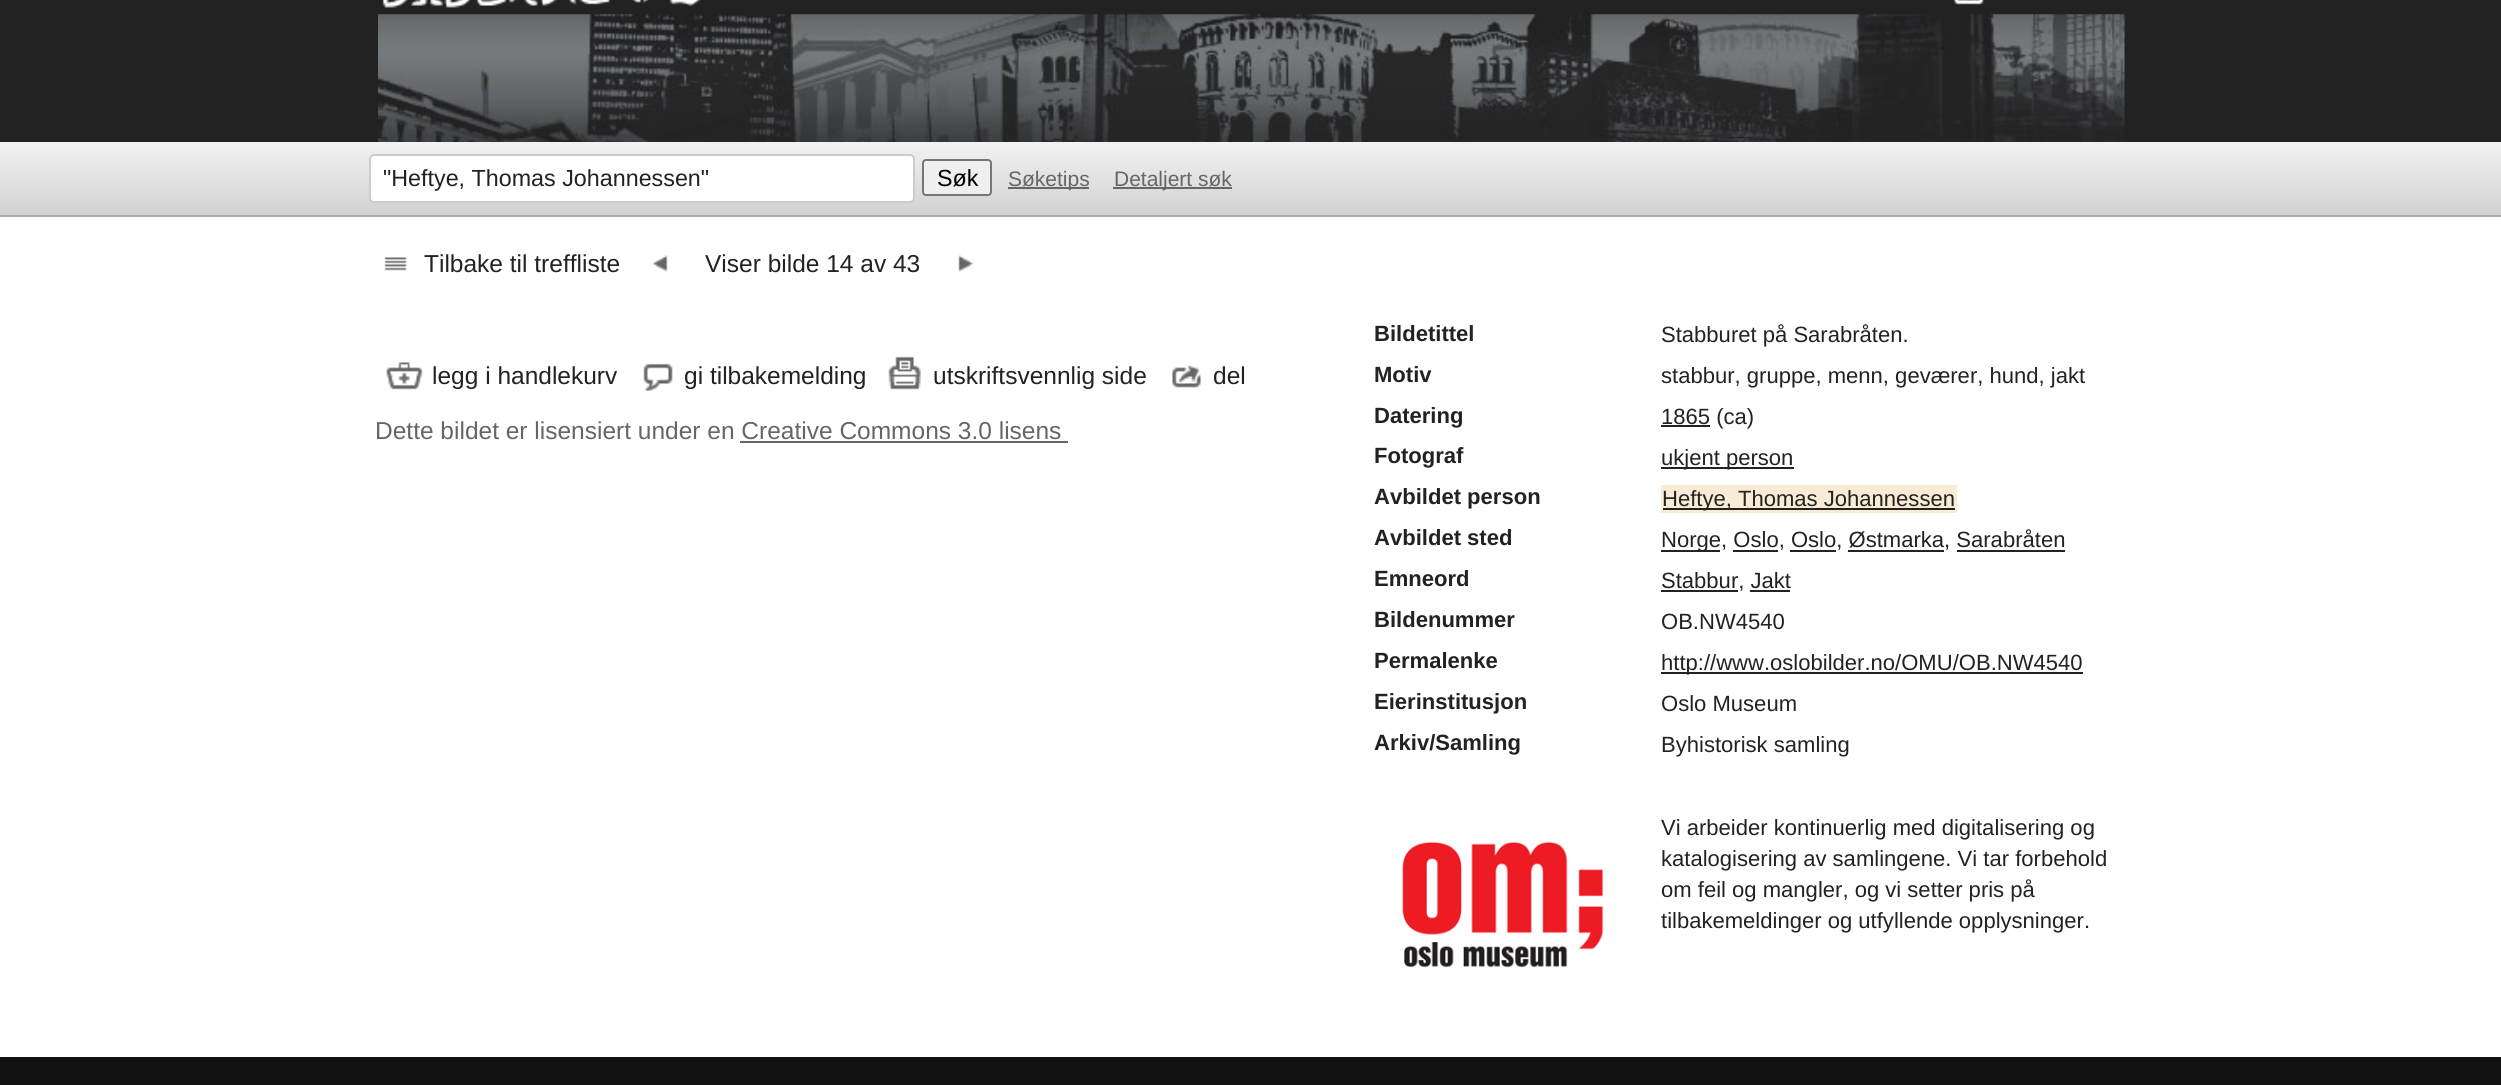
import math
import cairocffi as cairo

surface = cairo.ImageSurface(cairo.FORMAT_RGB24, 2501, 1085)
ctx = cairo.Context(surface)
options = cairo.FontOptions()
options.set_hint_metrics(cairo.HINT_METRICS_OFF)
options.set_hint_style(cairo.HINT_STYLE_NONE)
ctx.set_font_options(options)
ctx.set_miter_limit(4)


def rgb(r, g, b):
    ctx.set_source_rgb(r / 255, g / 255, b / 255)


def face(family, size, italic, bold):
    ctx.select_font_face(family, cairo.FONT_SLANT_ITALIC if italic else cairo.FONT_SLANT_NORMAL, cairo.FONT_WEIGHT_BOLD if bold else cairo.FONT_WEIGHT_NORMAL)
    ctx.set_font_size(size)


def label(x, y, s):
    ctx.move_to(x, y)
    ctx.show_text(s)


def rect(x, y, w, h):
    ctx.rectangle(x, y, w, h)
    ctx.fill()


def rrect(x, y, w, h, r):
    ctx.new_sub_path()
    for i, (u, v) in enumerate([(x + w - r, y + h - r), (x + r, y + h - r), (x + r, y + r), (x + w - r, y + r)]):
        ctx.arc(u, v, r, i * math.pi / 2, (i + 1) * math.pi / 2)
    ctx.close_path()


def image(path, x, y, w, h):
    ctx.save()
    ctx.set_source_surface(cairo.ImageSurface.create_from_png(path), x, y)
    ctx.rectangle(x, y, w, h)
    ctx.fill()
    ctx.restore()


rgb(255, 255, 255)
ctx.paint()
rgb(34, 34, 34)
rect(0, 0, 2501, 142)
image('image0.png', 378, 14, 1747, 128)
image('image1.png', 382, 0, 319, 8)
image('image2.png', 1953, 0, 32, 5)
gradient = cairo.LinearGradient(1251, 142, 1251, 215)
gradient.add_color_stop_rgba(0, 0.949, 0.949, 0.949, 1)
gradient.add_color_stop_rgba(1, 0.824, 0.824, 0.824, 1)
ctx.set_source(gradient)
rect(0, 142, 2501, 73)
rgb(170, 170, 170)
rect(0, 215, 2501, 2)
rgb(255, 255, 255)
rrect(370, 155, 544, 47, 4)
ctx.fill_preserve()
rgb(204, 204, 204)
ctx.stroke()
face('Liberation Sans', 23.3, 0, 0)
rgb(34, 34, 34)
label(383, 186, '"Heftye, Thomas Johannessen"')
rgb(239, 239, 239)
rrect(923, 160, 68, 35, 3)
ctx.fill_preserve()
rgb(118, 118, 118)
ctx.stroke()
rgb(0, 0, 0)
label(937, 186, 'Søk')
rgb(102, 102, 102)
rect(1008, 187, 81, 2)
face('Liberation Sans', 21, 0, 0)
label(1008, 186, 'Søketips')
rect(1113, 187, 119, 2)
label(1114, 186, 'Detaljert søk')
image('image3.png', 384, 257, 23, 14)
face('Liberation Sans', 24.5, 0, 0)
rgb(34, 34, 34)
label(424, 272, 'Tilbake til treffliste')
image('image4.png', 652, 255, 16, 17)
label(705, 272, 'Viser bilde 14 av 43')
image('image5.png', 958, 255, 16, 17)
image('image6.png', 386, 362, 37, 28)
label(432, 384, 'legg i handlekurv')
image('image7.png', 643, 363, 30, 28)
label(684, 384, 'gi tilbakemelding')
image('image8.png', 888, 356, 33, 34)
label(933, 384, 'utskriftsvennlig side')
image('image9.png', 1172, 365, 29, 23)
label(1213, 384, 'del')
rgb(102, 102, 102)
label(375, 439, 'Dette bildet er lisensiert under en Creative Commons 3.0 lisens')
rect(740, 441, 328, 2)
face('Liberation Sans', 22.05, 0, 1)
rgb(34, 34, 34)
label(1374, 341, 'Bildetittel')
face('Liberation Sans', 22.05, 0, 0)
label(1661, 342, 'Stabburet på Sarabråten.')
face('Liberation Sans', 22.05, 0, 1)
label(1374, 382, 'Motiv')
face('Liberation Sans', 22.05, 0, 0)
label(1661, 383, 'stabbur, gruppe, menn, geværer, hund, jakt')
face('Liberation Sans', 22.05, 0, 1)
label(1374, 423, 'Datering')
rect(1661, 425, 49, 2)
face('Liberation Sans', 22.05, 0, 0)
label(1661, 424, '1865 (ca)')
face('Liberation Sans', 22.05, 0, 1)
label(1374, 463, 'Fotograf')
rect(1661, 467, 133, 2)
face('Liberation Sans', 22.05, 0, 0)
label(1661, 465, 'ukjent person')
face('Liberation Sans', 22.05, 0, 1)
label(1374, 504, 'Avbildet person')
rgb(250, 235, 215)
rect(1661, 485, 296, 28)
rgb(34, 34, 34)
rect(1663, 508, 292, 2)
face('Liberation Sans', 22.05, 0, 0)
label(1662, 506, 'Heftye, Thomas Johannessen')
face('Liberation Sans', 22.05, 0, 1)
label(1374, 545, 'Avbildet sted')
rect(1661, 550, 59, 2)
face('Liberation Sans', 22.05, 0, 0)
label(1661, 547, 'Norge, Oslo, Oslo, Østmarka, Sarabråten')
rect(1733, 550, 45, 2)
rect(1790, 550, 46, 2)
rect(1848, 550, 96, 2)
rect(1957, 550, 108, 2)
face('Liberation Sans', 22.05, 0, 1)
label(1374, 586, 'Emneord')
rect(1661, 590, 77, 2)
face('Liberation Sans', 22.05, 0, 0)
label(1661, 588, 'Stabbur, Jakt')
rect(1750, 590, 40, 2)
face('Liberation Sans', 22.05, 0, 1)
label(1374, 627, 'Bildenummer')
face('Liberation Sans', 22.05, 0, 0)
label(1661, 629, 'OB.NW4540')
face('Liberation Sans', 22.05, 0, 1)
label(1374, 668, 'Permalenke')
rect(1661, 672, 422, 2)
face('Liberation Sans', 22.05, 0, 0)
label(1661, 670, 'http://www.oslobilder.no/OMU/OB.NW4540')
face('Liberation Sans', 22.05, 0, 1)
label(1374, 709, 'Eierinstitusjon')
face('Liberation Sans', 22.05, 0, 0)
label(1661, 711, 'Oslo Museum')
face('Liberation Sans', 22.05, 0, 1)
label(1374, 750, 'Arkiv/Samling')
face('Liberation Sans', 22.05, 0, 0)
label(1661, 752, 'Byhistorisk samling')
image('image10.png', 1402, 841, 202, 127)
label(1661, 835, 'Vi arbeider kontinuerlig med digitalisering og')
label(1661, 866, 'katalogisering av samlingene. Vi tar forbehold')
label(1661, 897, 'om feil og mangler, og vi setter pris på')
label(1661, 928, 'tilbakemeldinger og utfyllende opplysninger.')
rgb(17, 17, 17)
rect(0, 1057, 2501, 28)
surface.write_to_png('render.png')
